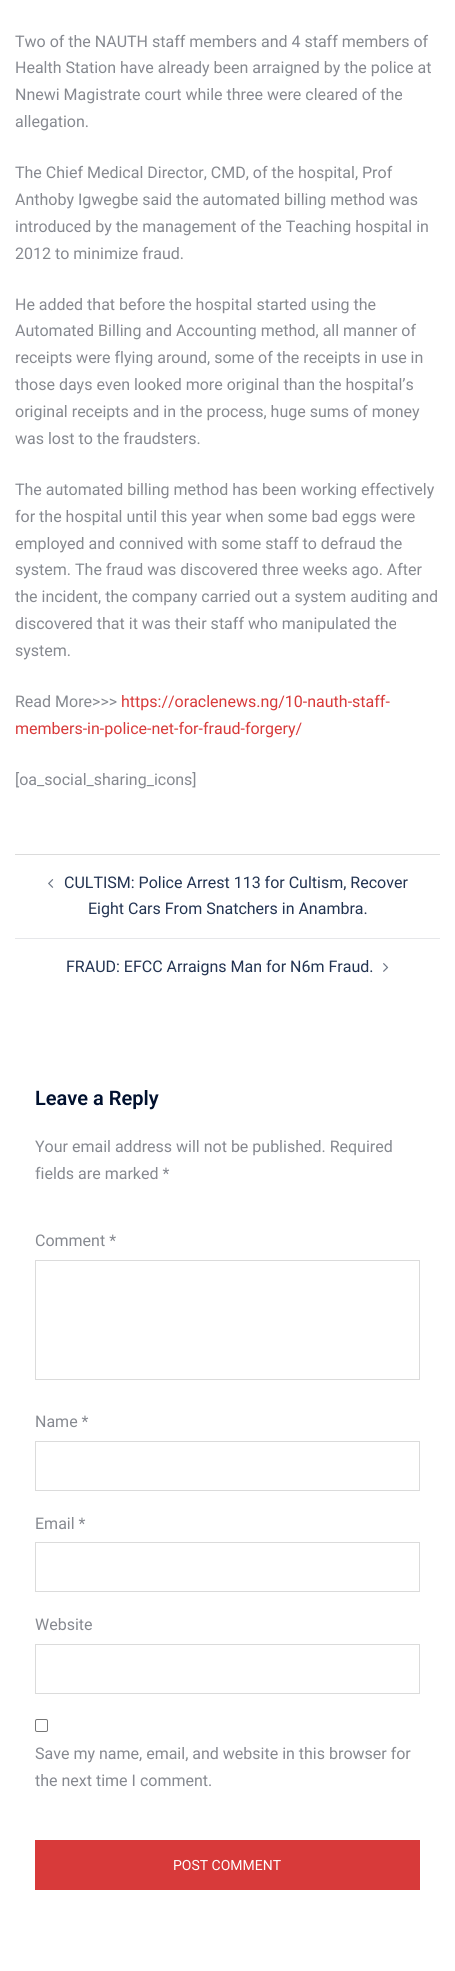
import math
import cairocffi as cairo

surface = cairo.ImageSurface(cairo.FORMAT_RGB24, 455, 1971)
ctx = cairo.Context(surface)
options = cairo.FontOptions()
options.set_hint_metrics(cairo.HINT_METRICS_OFF)
options.set_hint_style(cairo.HINT_STYLE_NONE)
ctx.set_font_options(options)
ctx.set_miter_limit(4)


def rgb(r, g, b):
    ctx.set_source_rgb(r / 255, g / 255, b / 255)


def face(family, size, italic, bold):
    ctx.select_font_face(family, cairo.FONT_SLANT_ITALIC if italic else cairo.FONT_SLANT_NORMAL, cairo.FONT_WEIGHT_BOLD if bold else cairo.FONT_WEIGHT_NORMAL)
    ctx.set_font_size(size)


def label(x, y, s):
    ctx.move_to(x, y)
    ctx.show_text(s)


def rect(x, y, w, h):
    ctx.rectangle(x, y, w, h)
    ctx.fill()


def rrect(x, y, w, h, r):
    ctx.new_sub_path()
    for i, (u, v) in enumerate([(x + w - r, y + h - r), (x + r, y + h - r), (x + r, y + r), (x + w - r, y + r)]):
        ctx.arc(u, v, r, i * math.pi / 2, (i + 1) * math.pi / 2)
    ctx.close_path()


def image(path, x, y, w, h):
    ctx.save()
    ctx.set_source_surface(cairo.ImageSurface.create_from_png(path), x, y)
    ctx.rectangle(x, y, w, h)
    ctx.fill()
    ctx.restore()


rgb(255, 255, 255)
ctx.paint()
face('Roboto', 16, 0, 0)
rgb(134, 137, 144)
label(15, 47, 'Two of the NAUTH staff members and 4 staff members of')
label(15, 73, 'Health Station have already been arraigned by the police at')
label(15, 100, 'Nnewi Magistrate court while three were cleared of the')
label(15, 127, 'allegation.')
label(15, 178, 'The Chief Medical Director, CMD, of the hospital, Prof')
label(15, 205, 'Anthoby Igwegbe said the automated billing method was')
label(15, 232, 'introduced by the management of the Teaching hospital in')
label(15, 259, '2012 to minimize fraud.')
label(15, 310, 'He added that before the hospital started using the')
label(15, 336, 'Automated Billing and Accounting method, all manner of')
label(15, 363, 'receipts were flying around, some of the receipts in use in')
label(15, 390, 'those days even looked more original than the hospital’s')
label(15, 417, 'original receipts and in the process, huge sums of money')
label(15, 444, 'was lost to the fraudsters.')
label(15, 495, 'The automated billing method has been working effectively')
label(15, 522, 'for the hospital until this year when some bad eggs were')
label(15, 549, 'employed and connived with some staff to defraud the')
label(15, 575, 'system. The fraud was discovered three weeks ago. After')
label(15, 602, 'the incident, the company carried out a system auditing and')
label(15, 629, 'discovered that it was their staff who manipulated the')
label(15, 656, 'system.')
label(15, 707, 'Read More>>>')
rgb(216, 58, 58)
label(121, 707, 'https://oraclenews.ng/10-nauth-staff-')
label(15, 734, 'members-in-police-net-for-fraud-forgery/')
rgb(134, 137, 144)
label(15, 785, '[oa_social_sharing_icons]')
rgb(219, 219, 219)
rect(15, 854, 425, 1)
rgb(230, 231, 234)
rect(15, 938, 425, 1)
image('image0.png', 48, 879, 6, 9)
rgb(35, 52, 82)
label(64, 888, 'CULTISM: Police Arrest 113 for Cultism, Recover')
label(88, 914, 'Eight Cars From Snatchers in Anambra.')
label(66, 972, 'FRAUD: EFCC Arraigns Man for N6m Fraud.')
image('image1.png', 383, 963, 6, 9)
face('Roboto SemiBold', 20, 0, 0)
rgb(0, 16, 46)
label(35, 1105, 'Leave a Reply')
face('Roboto', 16, 0, 0)
rgb(134, 137, 144)
label(35, 1152, 'Your email address will not be published. Required')
label(35, 1179, 'fields are marked *')
label(35, 1246, 'Comment *')
ctx.rectangle(35.5, 1260.5, 384, 119)
rgb(219, 219, 219)
ctx.set_line_width(1)
ctx.stroke()
rgb(134, 137, 144)
label(35, 1427, 'Name *')
ctx.rectangle(35.5, 1441.5, 384, 49)
rgb(219, 219, 219)
ctx.stroke()
rgb(134, 137, 144)
label(35, 1529, 'Email *')
ctx.rectangle(35.5, 1542.5, 384, 49)
rgb(219, 219, 219)
ctx.stroke()
rgb(134, 137, 144)
label(35, 1630, 'Website')
ctx.rectangle(35.5, 1644.5, 384, 49)
rgb(219, 219, 219)
ctx.stroke()
rrect(35.5, 1719.5, 12, 12, 1.5)
rgb(118, 118, 118)
ctx.stroke()
rgb(134, 137, 144)
label(35, 1759, 'Save my name, email, and website in this browser for')
label(35, 1786, 'the next time I comment.')
rgb(216, 58, 58)
rect(35, 1840, 385, 50)
face('Roboto', 14, 0, 0)
rgb(255, 255, 255)
label(173, 1870, 'POST COMMENT')
surface.write_to_png('render.png')
